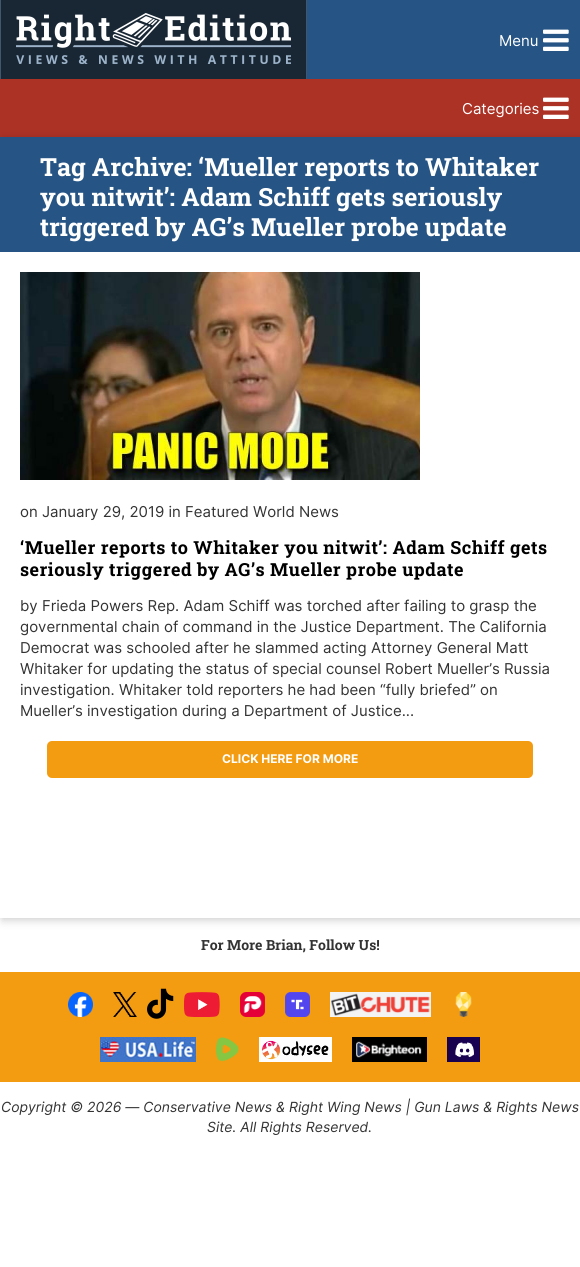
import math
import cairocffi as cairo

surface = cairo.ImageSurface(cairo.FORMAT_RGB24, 580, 1267)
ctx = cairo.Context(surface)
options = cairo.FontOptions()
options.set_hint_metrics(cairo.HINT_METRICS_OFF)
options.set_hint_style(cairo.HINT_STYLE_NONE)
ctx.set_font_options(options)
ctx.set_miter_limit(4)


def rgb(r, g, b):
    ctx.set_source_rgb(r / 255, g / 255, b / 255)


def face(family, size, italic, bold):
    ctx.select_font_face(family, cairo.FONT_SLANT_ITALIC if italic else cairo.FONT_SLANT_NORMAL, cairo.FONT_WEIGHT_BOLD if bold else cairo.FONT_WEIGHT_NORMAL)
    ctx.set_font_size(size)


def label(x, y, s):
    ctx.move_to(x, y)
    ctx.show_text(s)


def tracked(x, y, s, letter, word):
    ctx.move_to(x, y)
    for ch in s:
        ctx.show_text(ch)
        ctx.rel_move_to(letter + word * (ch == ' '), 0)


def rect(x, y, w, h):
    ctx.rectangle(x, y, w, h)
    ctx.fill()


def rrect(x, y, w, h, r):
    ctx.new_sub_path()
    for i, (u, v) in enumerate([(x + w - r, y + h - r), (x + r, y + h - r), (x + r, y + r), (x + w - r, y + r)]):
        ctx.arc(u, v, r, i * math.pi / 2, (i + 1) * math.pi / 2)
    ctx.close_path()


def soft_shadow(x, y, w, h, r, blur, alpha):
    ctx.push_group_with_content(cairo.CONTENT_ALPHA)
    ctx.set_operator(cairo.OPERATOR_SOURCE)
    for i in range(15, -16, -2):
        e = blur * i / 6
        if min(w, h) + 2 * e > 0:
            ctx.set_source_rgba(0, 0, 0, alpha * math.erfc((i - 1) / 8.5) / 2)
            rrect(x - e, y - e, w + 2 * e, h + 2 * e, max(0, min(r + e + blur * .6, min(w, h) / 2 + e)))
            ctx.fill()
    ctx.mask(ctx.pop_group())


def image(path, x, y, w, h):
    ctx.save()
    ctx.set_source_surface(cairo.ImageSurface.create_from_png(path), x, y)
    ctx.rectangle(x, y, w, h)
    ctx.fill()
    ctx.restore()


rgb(255, 255, 255)
ctx.paint()
rgb(38, 85, 133)
rect(307, 0, 273, 79)
rgb(64, 87, 109)
rect(0, 0, 1, 79)
rgb(25, 39, 53)
rect(1, 0, 305, 79)
rgb(64, 87, 109)
rect(306, 0, 1, 79)
image('image0.png', 16, 13, 275, 51)
face('Inter', 15, 0, 0)
rgb(255, 255, 255)
label(499, 46, 'Menu')
image('image1.png', 543, 29, 26, 22)
rgb(173, 50, 38)
rect(0, 79, 580, 58)
rgb(255, 255, 255)
label(462, 114, 'Categories')
image('image2.png', 543, 97, 26, 22)
ctx.save()
ctx.set_fill_rule(cairo.FILL_RULE_EVEN_ODD)
ctx.new_path()
ctx.move_to(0, 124)
ctx.line_to(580, 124)
ctx.line_to(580, 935)
ctx.line_to(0, 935)
ctx.close_path()
ctx.move_to(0, 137)
ctx.line_to(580, 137)
ctx.line_to(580, 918)
ctx.line_to(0, 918)
ctx.close_path()
ctx.clip()
rgb(0, 0, 0)
soft_shadow(2, 139, 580, 781, 0, 4.5, 0.2)
ctx.restore()
rgb(38, 85, 133)
rect(0, 137, 580, 115)
face('Roboto Slab', 25, 0, 1)
rgb(255, 255, 255)
label(40, 176, 'Tag Archive: ‘Mueller reports to Whitaker')
label(40, 206, 'you nitwit’: Adam Schiff gets seriously')
label(40, 236, 'triggered by AG’s Mueller probe update')
image('image3.png', 20, 272, 400, 208)
face('Inter', 15, 0, 0)
rgb(51, 51, 51)
label(20, 517, 'on January 29, 2019 in Featured World News')
face('Roboto Slab', 18, 0, 1)
rgb(0, 0, 0)
tracked(20, 554, '‘Mueller reports to Whitaker you nitwit’: Adam Schiff gets', 0.5, 0)
tracked(20, 576, 'seriously triggered by AG’s Mueller probe update', 0.5, 0)
face('Inter', 15, 0, 0)
rgb(51, 51, 51)
label(20, 611, 'by Frieda Powers Rep. Adam Schiff was torched after failing to grasp the')
label(20, 632, 'governmental chain of command in the Justice Department. The California')
label(20, 653, 'Democrat was schooled after he slammed acting Attorney General Matt')
label(20, 674, 'Whitaker for updating the status of special counsel Robert Mueller’s Russia')
label(20, 695, 'investigation. Whitaker told reporters he had been “fully briefed” on')
label(20, 716, 'Mueller’s investigation during a Department of Justice...')
rgb(243, 156, 18)
rrect(47, 741, 486, 37, 5)
ctx.fill()
face('Inter', 12, 0, 1)
rgb(255, 255, 255)
label(222, 763, 'CLICK HERE FOR MORE')
face('Roboto Slab', 14, 0, 1)
rgb(51, 51, 51)
label(201, 950, 'For More Brian, Follow Us!')
rgb(243, 156, 18)
rect(0, 972, 580, 110)
image('image4.png', 68, 992, 25, 25)
image('image5.png', 113, 992, 24, 25)
image('image6.png', 147, 988, 27, 31)
image('image7.png', 184, 992, 36, 25)
image('image8.png', 240, 992, 25, 25)
image('image9.png', 285, 992, 25, 25)
image('image10.png', 330, 992, 101, 25)
image('image11.png', 455, 992, 17, 25)
image('image12.png', 100, 1037, 96, 25)
image('image13.png', 216, 1037, 23, 25)
image('image14.png', 259, 1037, 73, 25)
image('image15.png', 352, 1037, 75, 25)
image('image16.png', 447, 1037, 33, 25)
face('Inter', 14, 1, 0)
rgb(51, 51, 51)
label(1, 1112, 'Copyright © 2026 — Conservative News & Right Wing News | Gun Laws & Rights News')
label(207, 1132, 'Site. All Rights Reserved.')
surface.write_to_png('render.png')
